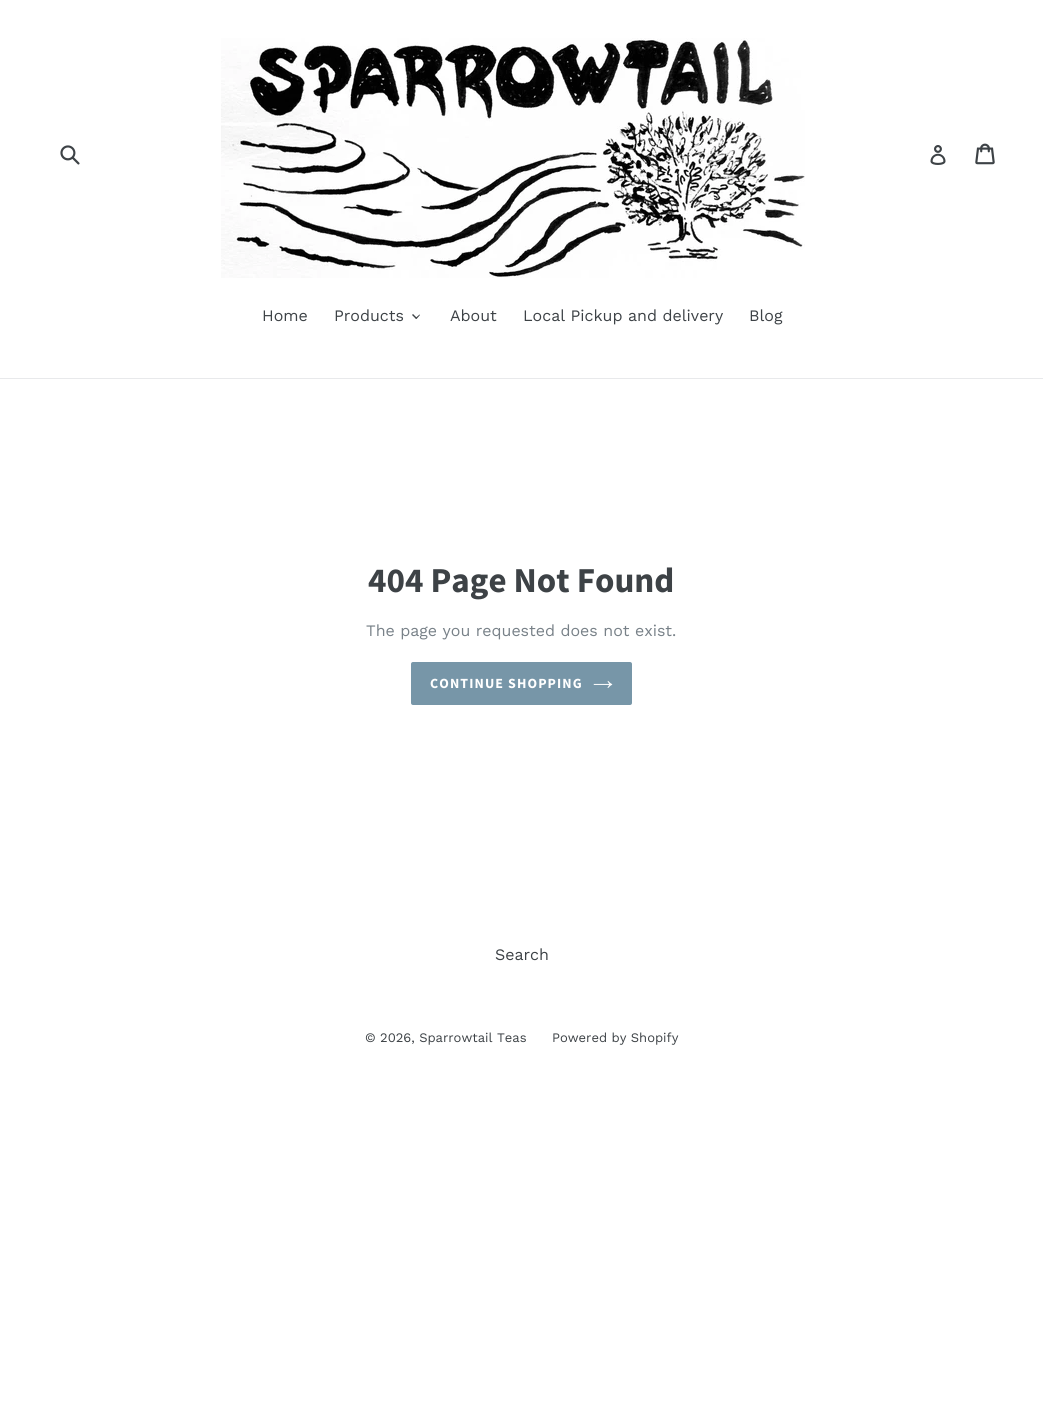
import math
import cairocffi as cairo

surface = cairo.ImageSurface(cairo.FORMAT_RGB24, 1043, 1424)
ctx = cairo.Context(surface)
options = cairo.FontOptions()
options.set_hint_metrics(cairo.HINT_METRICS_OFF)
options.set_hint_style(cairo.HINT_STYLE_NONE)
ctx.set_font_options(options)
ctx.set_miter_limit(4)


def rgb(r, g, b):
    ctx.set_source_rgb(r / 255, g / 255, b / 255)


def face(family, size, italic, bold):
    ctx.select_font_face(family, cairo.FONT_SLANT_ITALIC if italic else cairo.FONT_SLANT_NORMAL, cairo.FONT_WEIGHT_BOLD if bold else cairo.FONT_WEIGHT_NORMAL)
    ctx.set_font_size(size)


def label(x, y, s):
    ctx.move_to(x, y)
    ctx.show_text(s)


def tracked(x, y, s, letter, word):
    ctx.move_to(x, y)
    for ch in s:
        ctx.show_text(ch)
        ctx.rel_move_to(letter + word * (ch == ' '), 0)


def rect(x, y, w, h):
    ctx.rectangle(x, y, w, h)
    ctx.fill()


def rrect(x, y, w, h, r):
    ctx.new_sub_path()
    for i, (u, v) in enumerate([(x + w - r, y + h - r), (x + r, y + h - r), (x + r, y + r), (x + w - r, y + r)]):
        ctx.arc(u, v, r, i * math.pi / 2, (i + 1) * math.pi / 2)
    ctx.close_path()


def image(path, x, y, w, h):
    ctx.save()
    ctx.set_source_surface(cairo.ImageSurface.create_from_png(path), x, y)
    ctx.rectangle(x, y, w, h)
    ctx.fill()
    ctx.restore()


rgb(255, 255, 255)
ctx.paint()
image('image0.png', 60, 145, 20, 20)
image('image1.png', 221, 38, 584, 240)
image('image2.png', 930, 145, 16, 20)
image('image3.png', 975, 143, 20, 22)
rgb(232, 233, 235)
rect(0, 378, 1043, 1)
face('Work Sans', 16, 0, 0)
rgb(61, 66, 70)
label(262, 321, 'Home')
label(334, 321, 'Products')
ctx.new_path()
ctx.move_to(419.5, 314.5)
ctx.line_to(420, 315)
ctx.line_to(416.5, 319)
ctx.line_to(415.5, 318)
ctx.close_path()
ctx.fill()
ctx.new_path()
ctx.move_to(413, 314)
ctx.line_to(417, 318)
ctx.line_to(416, 319)
ctx.line_to(412, 315)
ctx.close_path()
ctx.fill()
label(450, 321, 'About')
label(523, 321, 'Local Pickup and delivery')
label(749, 321, 'Blog')
face('Source Sans Pro', 35, 0, 1)
label(368, 592, '404 Page Not Found')
face('Work Sans', 16, 0, 0)
rgb(120, 129, 136)
label(366, 636, 'The page you requested does not exist.')
rgb(119, 150, 168)
rrect(411, 662, 221, 43, 2)
ctx.fill()
face('Source Sans Pro', 14, 0, 1)
rgb(255, 255, 255)
tracked(430, 688, 'CONTINUE SHOPPING', 1.1, 0)
image('image4.png', 593, 680, 20, 8)
face('Work Sans', 16, 0, 0)
rgb(61, 66, 70)
label(495, 960, 'Search')
face('Work Sans', 13, 0, 0)
label(365, 1042, '© 2026, Sparrowtail Teas')
label(552, 1042, 'Powered by Shopify')
surface.write_to_png('render.png')
